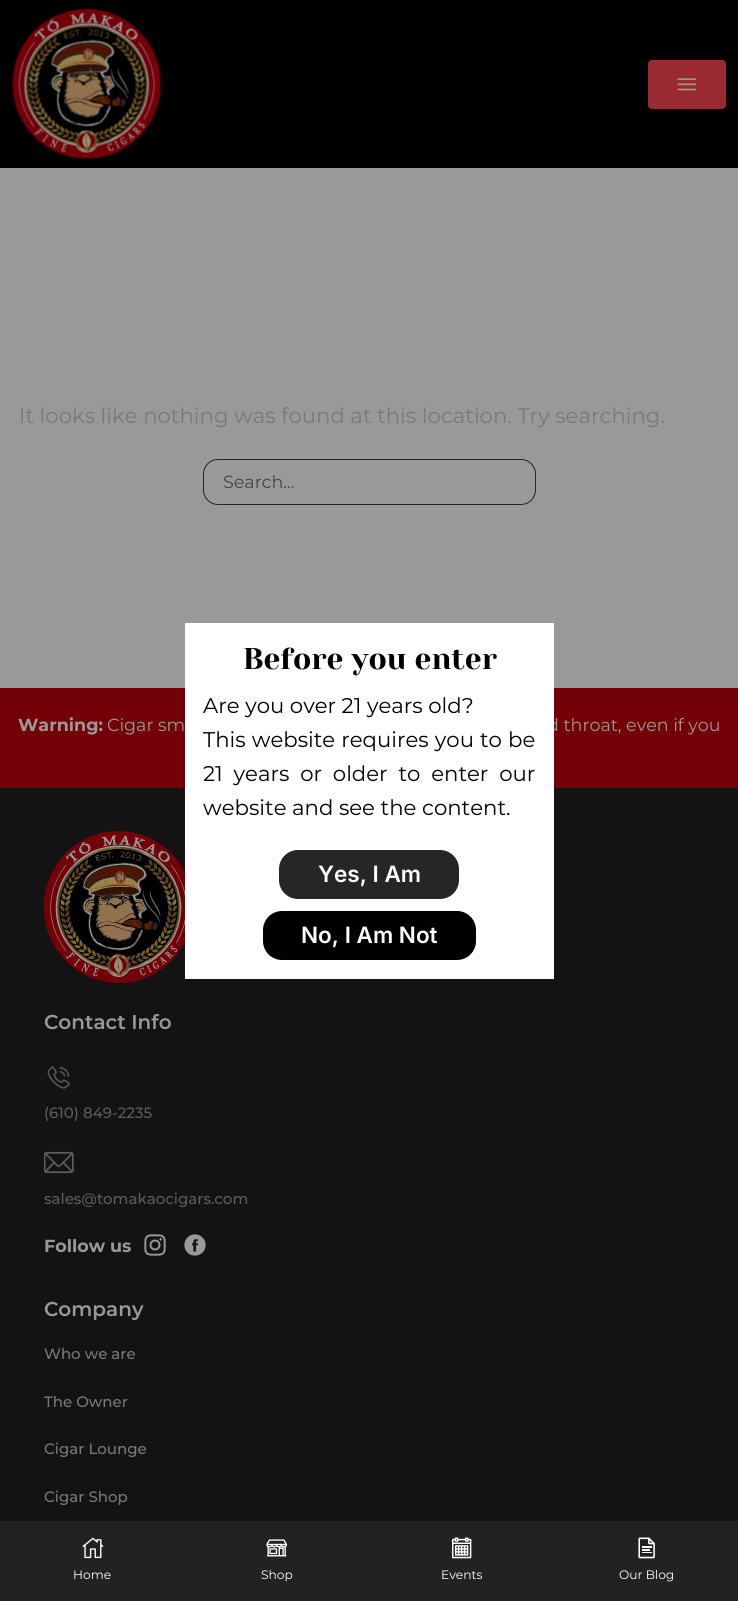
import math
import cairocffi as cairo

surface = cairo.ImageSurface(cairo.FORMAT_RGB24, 738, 1601)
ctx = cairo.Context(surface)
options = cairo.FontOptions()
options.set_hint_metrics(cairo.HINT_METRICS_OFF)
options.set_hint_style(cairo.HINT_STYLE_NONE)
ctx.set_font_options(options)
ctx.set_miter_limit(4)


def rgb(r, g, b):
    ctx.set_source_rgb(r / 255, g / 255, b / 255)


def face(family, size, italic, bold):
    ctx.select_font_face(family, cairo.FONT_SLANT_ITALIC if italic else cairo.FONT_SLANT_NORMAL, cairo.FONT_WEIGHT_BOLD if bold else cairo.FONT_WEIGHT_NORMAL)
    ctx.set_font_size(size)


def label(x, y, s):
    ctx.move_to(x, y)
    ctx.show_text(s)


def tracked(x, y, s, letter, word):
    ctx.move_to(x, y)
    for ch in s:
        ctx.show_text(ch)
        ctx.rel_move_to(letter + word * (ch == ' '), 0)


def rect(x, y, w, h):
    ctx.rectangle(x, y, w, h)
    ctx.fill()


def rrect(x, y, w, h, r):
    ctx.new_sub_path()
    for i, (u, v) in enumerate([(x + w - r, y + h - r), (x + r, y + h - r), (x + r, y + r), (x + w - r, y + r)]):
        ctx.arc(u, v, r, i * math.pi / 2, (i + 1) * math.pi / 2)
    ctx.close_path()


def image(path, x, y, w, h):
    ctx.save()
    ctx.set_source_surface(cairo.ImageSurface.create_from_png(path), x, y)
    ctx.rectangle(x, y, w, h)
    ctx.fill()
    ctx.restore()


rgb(153, 153, 153)
ctx.paint()
rgb(0, 0, 0)
rect(0, 0, 738, 168)
image('image0.png', 12, 8, 150, 151)
rgb(153, 42, 48)
rrect(648, 60, 78, 49, 4)
ctx.fill()
image('image1.png', 677, 78, 20, 13)
face('Montserrat', 21.25, 0, 0)
rgb(121, 121, 121)
label(19, 423, 'It looks like nothing was found at this location. Try searching.')
rrect(203.5, 459.5, 332, 45, 14.5)
rgb(37, 37, 37)
ctx.set_line_width(1)
ctx.stroke()
face('Montserrat', 17.5, 0, 0)
rgb(70, 70, 70)
label(223, 488, 'Search...')
rgb(34, 34, 34)
rect(0, 1521, 738, 80)
image('image2.png', 82, 1537, 22, 22)
face('Montserrat', 12.25, 0, 0)
rgb(255, 255, 255)
label(73, 1579, 'Home')
image('image3.png', 266, 1539, 22, 18)
label(261, 1579, 'Shop')
image('image4.png', 452, 1537, 20, 22)
label(441, 1579, 'Events')
image('image5.png', 638, 1537, 17, 22)
label(619, 1579, 'Our Blog')
rgb(115, 0, 6)
rect(0, 688, 738, 100)
face('Montserrat', 17.5, 0, 0)
rgb(153, 153, 153)
label(547, 731, 'd throat, even if you')
rgb(19, 19, 19)
rect(0, 788, 738, 733)
rgb(255, 255, 255)
rect(185, 623, 369, 356)
face('Yeseva One', 30, 0, 0)
rgb(0, 0, 0)
label(243, 669, 'Before you enter')
face('Montserrat', 21.25, 0, 0)
label(203, 713, 'Are you over 21 years old?')
tracked(203, 747, 'This website requires you to be', 0, 0.5)
tracked(203, 781, '21 years or older to enter our', 0, 5.25)
label(203, 815, 'website and see the content.')
rgb(38, 38, 38)
rrect(279, 850, 180, 49, 19)
ctx.fill()
face('Inter SemiBold', 22.5, 0, 0)
rgb(255, 255, 255)
label(318, 882, 'Yes, I Am')
rgb(0, 0, 0)
rrect(263, 911, 213, 49, 19)
ctx.fill()
rgb(255, 255, 255)
label(301, 943, 'No, I Am Not')
face('Montserrat', 17.5, 0, 1)
rgb(153, 153, 153)
label(18, 731, 'Warning:')
face('Montserrat', 17.5, 0, 0)
label(107, 731, 'Cigar sm')
image('image6.png', 44, 831, 141, 152)
face('Montserrat SemiBold', 20, 0, 0)
label(44, 1029, 'Contact Info')
image('image7.png', 47, 1066, 23, 23)
face('Montserrat Medium', 15, 0, 0)
rgb(91, 91, 91)
label(44, 1118, '(610) 849-2235')
image('image8.png', 44, 1151, 30, 23)
label(44, 1204, 'sales@tomakaocigars.com')
face('Montserrat', 17.5, 0, 1)
rgb(153, 153, 153)
label(44, 1252, 'Follow us')
image('image9.png', 144, 1234, 22, 22)
image('image10.png', 184, 1234, 22, 22)
face('Montserrat SemiBold', 20, 0, 0)
label(44, 1316, 'Company')
face('Montserrat Medium', 15, 0, 0)
rgb(121, 121, 121)
label(44, 1359, 'Who we are')
label(44, 1407, 'The Owner')
label(44, 1454, 'Cigar Lounge')
label(44, 1502, 'Cigar Shop')
surface.write_to_png('render.png')
